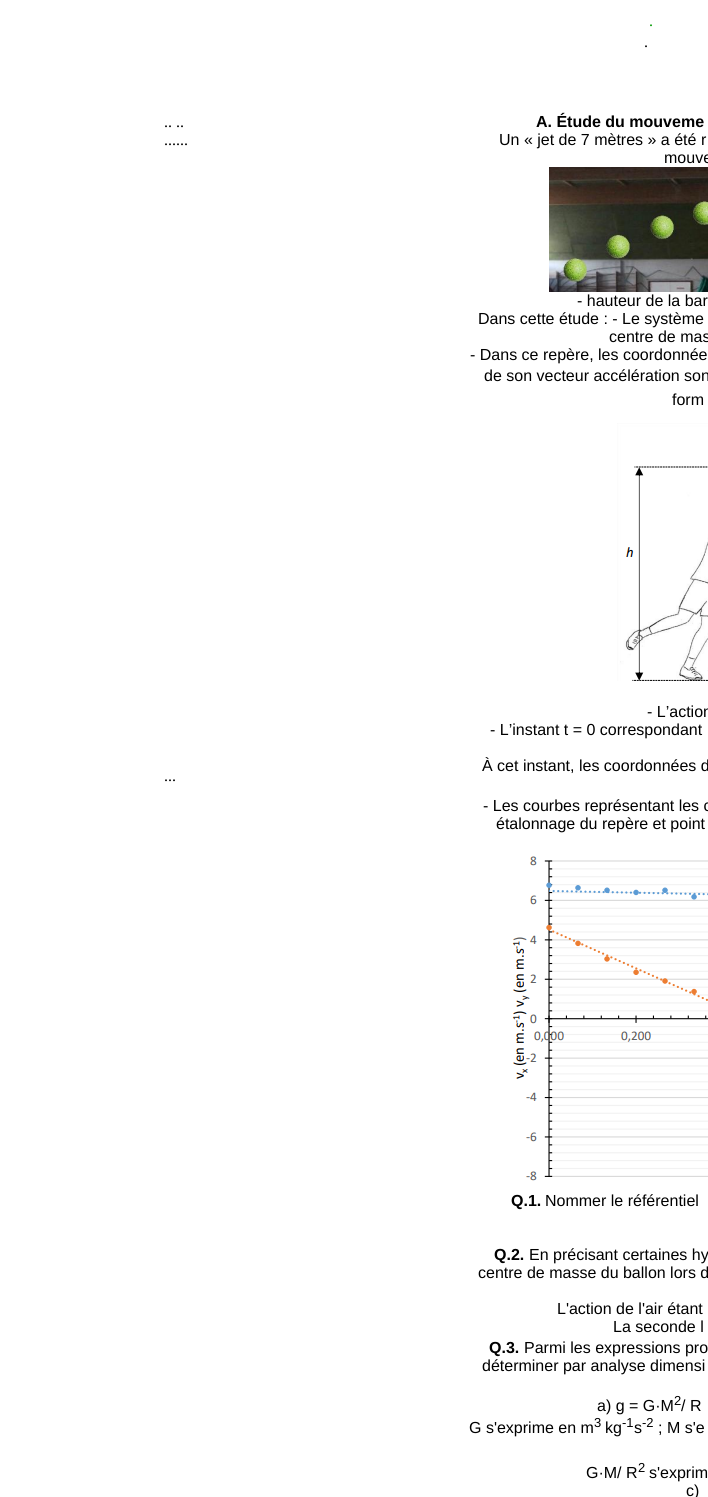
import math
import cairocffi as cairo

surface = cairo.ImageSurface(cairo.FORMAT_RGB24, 708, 1497)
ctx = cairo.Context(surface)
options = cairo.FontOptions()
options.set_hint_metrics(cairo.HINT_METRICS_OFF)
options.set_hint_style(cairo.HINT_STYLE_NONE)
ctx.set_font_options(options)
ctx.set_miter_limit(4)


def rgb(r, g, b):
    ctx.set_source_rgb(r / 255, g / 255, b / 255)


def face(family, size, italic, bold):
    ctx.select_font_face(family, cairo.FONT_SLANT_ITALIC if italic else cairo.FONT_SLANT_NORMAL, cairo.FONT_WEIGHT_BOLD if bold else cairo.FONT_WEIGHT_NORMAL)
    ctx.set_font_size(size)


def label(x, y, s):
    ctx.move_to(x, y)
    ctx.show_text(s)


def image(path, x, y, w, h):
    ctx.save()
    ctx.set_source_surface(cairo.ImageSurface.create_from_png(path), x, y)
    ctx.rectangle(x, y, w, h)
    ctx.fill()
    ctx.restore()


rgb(255, 255, 255)
ctx.paint()
face('Liberation Serif', 16, 0, 0)
rgb(0, 153, 0)
label(649, 26, '.')
rgb(0, 0, 0)
label(644, 47, '.')
label(164, 127, '.. ..')
label(164, 145, '......')
label(164, 781, '...')
face('Liberation Sans', 16, 0, 1)
label(536, 127, 'A. Étude du mouveme')
face('Liberation Sans', 16, 0, 0)
label(499, 145, 'Un « jet de 7 mètres » a été r')
label(664, 163, 'mouve')
image('image0.png', 549, 167, 159, 125)
label(577, 306, '- hauteur de la bar')
label(478, 324, 'Dans cette étude : - Le système')
label(609, 342, 'centre de mas')
label(470, 360, '- Dans ce repère, les coordonnée')
label(484, 381, 'de son vecteur accélération son')
label(672, 405, 'form')
image('image1.png', 617, 423, 91, 258)
label(647, 717, '- L’action')
label(490, 735, '- L’instant t = 0 correspondant')
label(482, 771, 'À cet instant, les coordonnées d')
label(483, 811, '- Les courbes représentant les c')
label(496, 829, 'étalonnage du repère et point')
image('image2.png', 512, 856, 196, 325)
face('Liberation Sans', 16, 0, 1)
label(511, 1206, 'Q.1.')
face('Liberation Sans', 16, 0, 0)
label(545, 1206, 'Nommer le référentiel')
face('Liberation Sans', 16, 0, 1)
label(494, 1260, 'Q.2.')
face('Liberation Sans', 16, 0, 0)
label(529, 1260, 'En précisant certaines hy')
label(478, 1278, 'centre de masse du ballon lors d')
label(557, 1314, 'L\'action de l\'air étant')
label(613, 1332, 'La seconde l')
face('Liberation Sans', 16, 0, 1)
label(489, 1353, 'Q.3.')
face('Liberation Sans', 16, 0, 0)
label(524, 1353, 'Parmi les expressions pro')
label(482, 1371, 'déterminer par analyse dimensi')
label(597, 1411, 'a) g = G·M')
face('Liberation Sans', 13, 0, 0)
label(674, 1405, '2')
face('Liberation Sans', 16, 0, 0)
label(681, 1411, '/ R')
label(469, 1433, 'G s\'exprime en m')
face('Liberation Sans', 13, 0, 0)
label(594, 1427, '3')
face('Liberation Sans', 16, 0, 0)
label(605, 1433, 'kg')
face('Liberation Sans', 13, 0, 0)
label(622, 1427, '-1')
face('Liberation Sans', 16, 0, 0)
label(634, 1433, 's')
face('Liberation Sans', 13, 0, 0)
label(642, 1427, '-2')
face('Liberation Sans', 16, 0, 0)
label(658, 1433, '; M s\'e')
label(586, 1478, 'G·M/ R')
face('Liberation Sans', 13, 0, 0)
label(638, 1472, '2')
face('Liberation Sans', 16, 0, 0)
label(649, 1478, 's\'exprim')
label(686, 1496, 'c)')
surface.write_to_png('render.png')
